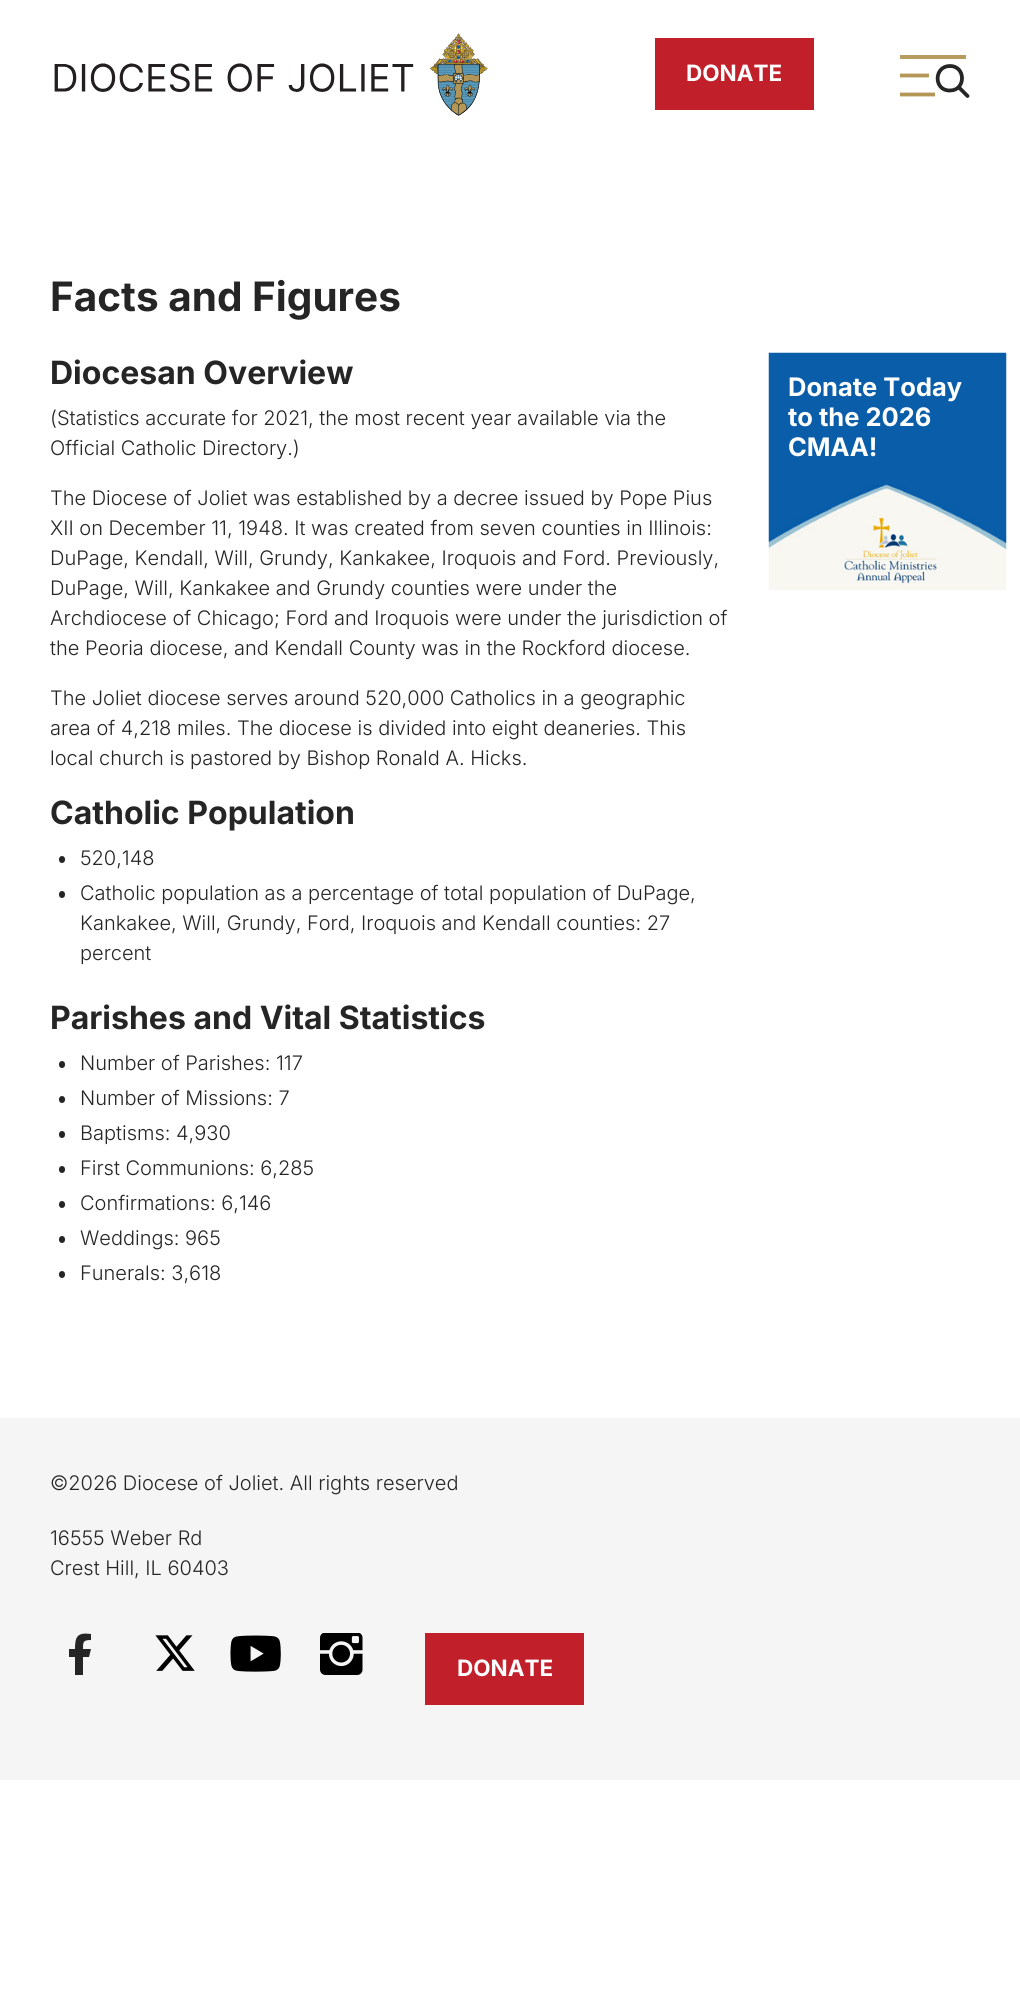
import math
import cairocffi as cairo

surface = cairo.ImageSurface(cairo.FORMAT_RGB24, 1020, 2005)
ctx = cairo.Context(surface)
options = cairo.FontOptions()
options.set_hint_metrics(cairo.HINT_METRICS_OFF)
options.set_hint_style(cairo.HINT_STYLE_NONE)
ctx.set_font_options(options)
ctx.set_miter_limit(4)


def rgb(r, g, b):
    ctx.set_source_rgb(r / 255, g / 255, b / 255)


def face(family, size, italic, bold):
    ctx.select_font_face(family, cairo.FONT_SLANT_ITALIC if italic else cairo.FONT_SLANT_NORMAL, cairo.FONT_WEIGHT_BOLD if bold else cairo.FONT_WEIGHT_NORMAL)
    ctx.set_font_size(size)


def label(x, y, s):
    ctx.move_to(x, y)
    ctx.show_text(s)


def rect(x, y, w, h):
    ctx.rectangle(x, y, w, h)
    ctx.fill()


def rrect(x, y, w, h, r):
    ctx.new_sub_path()
    for i, (u, v) in enumerate([(x + w - r, y + h - r), (x + r, y + h - r), (x + r, y + r), (x + w - r, y + r)]):
        ctx.arc(u, v, r, i * math.pi / 2, (i + 1) * math.pi / 2)
    ctx.close_path()


def image(path, x, y, w, h):
    ctx.save()
    ctx.set_source_surface(cairo.ImageSurface.create_from_png(path), x, y)
    ctx.rectangle(x, y, w, h)
    ctx.fill()
    ctx.restore()


rgb(255, 255, 255)
ctx.paint()
image('image0.png', 54, 33, 434, 83)
rgb(193, 32, 43)
rect(655, 38, 159, 72)
face('Inter', 22.5, 0, 1)
rgb(255, 255, 255)
label(686, 81, 'DONATE')
ctx.new_path()
ctx.move_to(900, 94.5)
ctx.line_to(935, 94.5)
rgb(180, 150, 87)
ctx.set_line_width(3.8)
ctx.stroke()
rgb(184, 155, 95)
rect(900, 55, 66, 4)
ctx.new_path()
ctx.move_to(900, 75.5)
ctx.line_to(929, 75.5)
rgb(180, 150, 87)
ctx.stroke()
ctx.new_path()
ctx.move_to(950, 66)
ctx.curve_to(933.5, 66, 933.5, 91, 950, 90.5)
ctx.curve_to(966, 90.5, 966, 66, 950, 66)
ctx.close_path()
rgb(37, 37, 37)
ctx.stroke()
ctx.new_path()
ctx.move_to(959, 87.5)
ctx.line_to(967.5, 96)
ctx.set_line_cap(cairo.LINE_CAP_ROUND)
ctx.stroke()
face('Inter', 40.5, 0, 1)
label(50, 311, 'Facts and Figures')
face('Inter', 32, 0, 1)
label(50, 384, 'Diocesan Overview')
face('Inter Light', 20, 0, 0)
label(50, 425, '(Statistics accurate for 2021, the most recent year available via the')
label(50, 455, 'Official Catholic Directory.)')
label(50, 505, 'The Diocese of Joliet was established by a decree issued by Pope Pius')
label(50, 535, 'XII on December 11, 1948. It was created from seven counties in Illinois:')
label(50, 565, 'DuPage, Kendall, Will, Grundy, Kankakee, Iroquois and Ford. Previously,')
label(50, 595, 'DuPage, Will, Kankakee and Grundy counties were under the')
label(50, 625, 'Archdiocese of Chicago; Ford and Iroquois were under the jurisdiction of')
label(50, 655, 'the Peoria diocese, and Kendall County was in the Rockford diocese.')
label(50, 705, 'The Joliet diocese serves around 520,000 Catholics in a geographic')
label(50, 735, 'area of 4,218 miles. The diocese is divided into eight deaneries. This')
label(50, 765, 'local church is pastored by Bishop Ronald A. Hicks.')
face('Inter', 32, 0, 1)
label(50, 824, 'Catholic Population')
rrect(59, 856, 6, 7, 3)
ctx.fill()
face('Inter Light', 20, 0, 0)
label(80, 865, '520,148')
rrect(59, 891, 6, 7, 3)
ctx.fill()
label(80, 900, 'Catholic population as a percentage of total population of DuPage,')
label(80, 930, 'Kankakee, Will, Grundy, Ford, Iroquois and Kendall counties: 27')
label(80, 960, 'percent')
face('Inter', 32, 0, 1)
label(50, 1029, 'Parishes and Vital Statistics')
rrect(59, 1061, 6, 7, 3)
ctx.fill()
face('Inter Light', 20, 0, 0)
label(80, 1070, 'Number of Parishes: 117')
rrect(59, 1096, 6, 7, 3)
ctx.fill()
label(80, 1105, 'Number of Missions: 7')
rrect(59, 1131, 6, 7, 3)
ctx.fill()
label(80, 1140, 'Baptisms: 4,930')
rrect(59, 1166, 6, 7, 3)
ctx.fill()
label(80, 1175, 'First Communions: 6,285')
rrect(59, 1201, 6, 7, 3)
ctx.fill()
label(80, 1210, 'Confirmations: 6,146')
rrect(59, 1236, 6, 7, 3)
ctx.fill()
label(80, 1245, 'Weddings: 965')
rrect(59, 1271, 6, 7, 3)
ctx.fill()
label(80, 1280, 'Funerals: 3,618')
image('image1.png', 768, 352, 239, 238)
face('Inter', 25.5, 0, 1)
rgb(255, 255, 255)
label(788, 396, 'Donate Today')
label(788, 426, 'to the 2026')
label(788, 456, 'CMAA!')
rgb(245, 245, 245)
rect(0, 1418, 1020, 362)
face('Inter Light', 20, 0, 0)
rgb(37, 37, 37)
label(50, 1490, '©2026 Diocese of Joliet. All rights reserved')
label(50, 1545, '16555 Weber Rd')
label(50, 1575, 'Crest Hill, IL 60403')
ctx.new_path()
ctx.move_to(89, 1657)
ctx.line_to(91, 1649)
ctx.line_to(83, 1649)
ctx.curve_to(83, 1642, 83, 1640, 91, 1640)
ctx.line_to(91, 1634)
ctx.curve_to(77, 1632, 75, 1637, 75, 1649)
ctx.line_to(69, 1649)
ctx.line_to(69, 1657)
ctx.line_to(75, 1657)
ctx.line_to(75, 1675)
ctx.line_to(83, 1675)
ctx.line_to(83, 1657)
ctx.close_path()
ctx.fill()
image('image2.png', 155, 1635, 40, 36)
image('image3.png', 230, 1635, 51, 37)
image('image4.png', 320, 1633, 43, 42)
rgb(193, 32, 43)
rect(425, 1633, 159, 72)
face('Inter', 22.5, 0, 1)
rgb(255, 255, 255)
label(457, 1676, 'DONATE')
surface.write_to_png('render.png')
